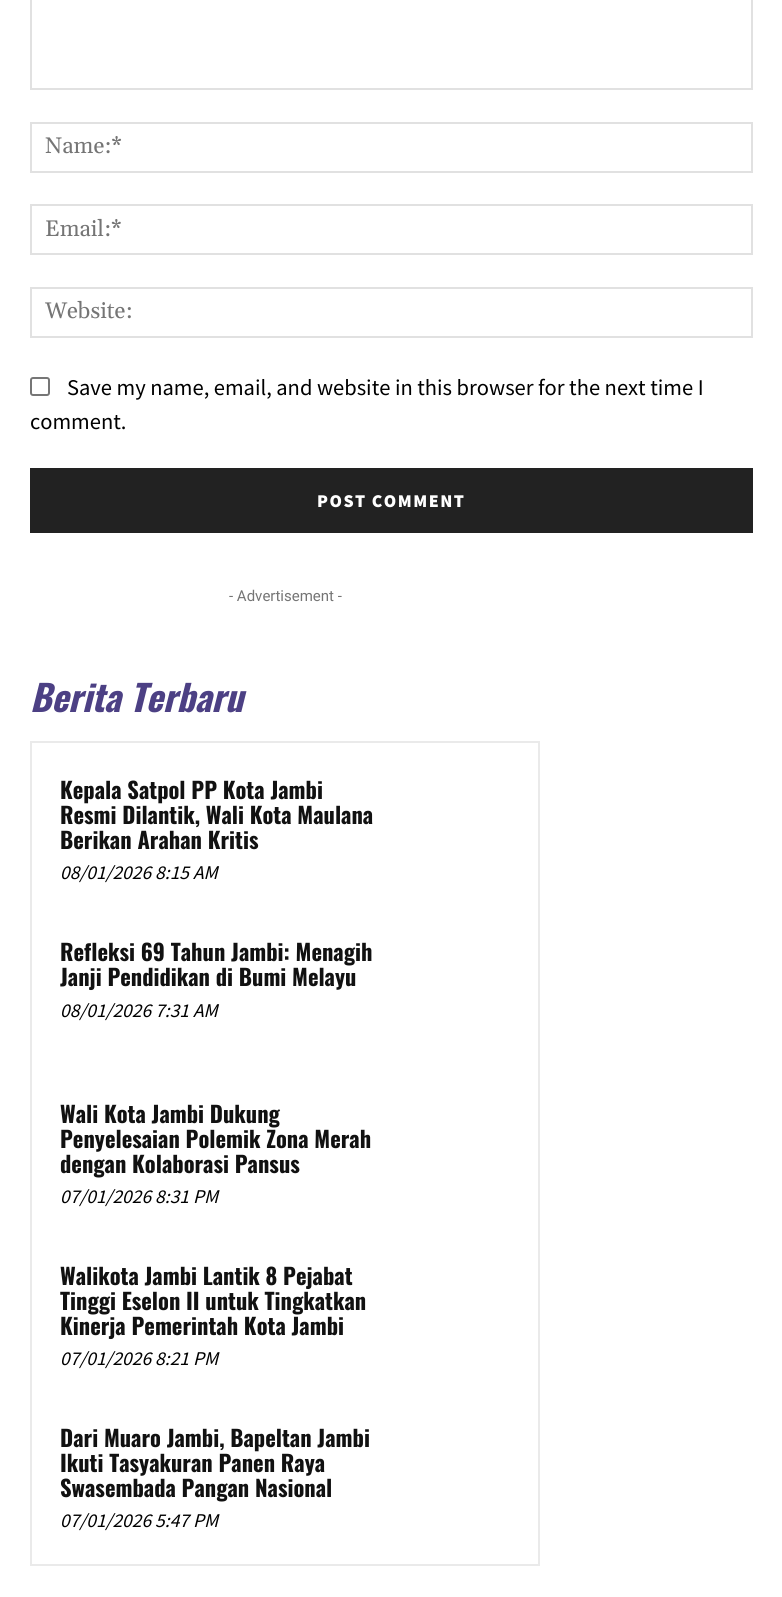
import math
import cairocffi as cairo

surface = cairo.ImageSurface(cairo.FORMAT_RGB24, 782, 1597)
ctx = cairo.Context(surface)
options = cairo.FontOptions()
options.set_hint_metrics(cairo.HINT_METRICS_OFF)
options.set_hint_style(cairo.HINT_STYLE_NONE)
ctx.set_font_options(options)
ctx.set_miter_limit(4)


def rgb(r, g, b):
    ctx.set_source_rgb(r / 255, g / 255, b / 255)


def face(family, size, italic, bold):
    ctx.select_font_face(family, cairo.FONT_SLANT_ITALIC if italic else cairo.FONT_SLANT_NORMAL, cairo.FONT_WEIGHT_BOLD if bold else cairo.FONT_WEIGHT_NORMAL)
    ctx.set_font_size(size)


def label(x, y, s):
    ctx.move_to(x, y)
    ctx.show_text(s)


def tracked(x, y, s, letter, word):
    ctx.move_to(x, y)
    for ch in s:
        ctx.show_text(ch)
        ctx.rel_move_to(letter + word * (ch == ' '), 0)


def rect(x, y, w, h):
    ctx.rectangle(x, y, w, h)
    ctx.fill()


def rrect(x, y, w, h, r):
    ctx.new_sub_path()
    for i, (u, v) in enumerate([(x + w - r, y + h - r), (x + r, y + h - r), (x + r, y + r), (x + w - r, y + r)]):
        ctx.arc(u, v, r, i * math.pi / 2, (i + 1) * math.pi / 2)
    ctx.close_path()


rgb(255, 255, 255)
ctx.paint()
ctx.rectangle(31, -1, 721, 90)
rgb(225, 225, 225)
ctx.stroke()
ctx.rectangle(31, 123, 721, 49)
ctx.stroke()
face('Gelasio', 22.5, 0, 0)
rgb(117, 117, 117)
label(45, 153, 'Name:*')
ctx.rectangle(31, 205, 721, 49)
rgb(225, 225, 225)
ctx.stroke()
rgb(117, 117, 117)
label(45, 236, 'Email:*')
ctx.rectangle(31, 288, 721, 49)
rgb(225, 225, 225)
ctx.stroke()
rgb(117, 117, 117)
label(45, 318, 'Website:')
rrect(31, 378, 18, 17, 2)
rgb(118, 118, 118)
ctx.stroke()
face('Source Sans Pro', 22.5, 0, 0)
rgb(0, 0, 0)
label(67, 395, 'Save my name, email, and website in this browser for the next time I')
label(30, 429, 'comment.')
rgb(34, 34, 34)
rect(30, 468, 723, 65)
face('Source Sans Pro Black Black', 18, 0, 0)
rgb(255, 255, 255)
tracked(317, 507, 'POST COMMENT', 1.5, 0)
face('Roboto', 15, 0, 0)
rgb(117, 117, 117)
label(229, 601, '- Advertisement -')
face('Oswald', 36, 1, 1)
rgb(76, 64, 132)
label(30, 712, 'Berita Terbaru')
ctx.rectangle(31, 742, 508, 823)
rgb(234, 234, 234)
ctx.stroke()
face('Oswald', 22.5, 0, 1)
rgb(17, 17, 17)
label(60, 799, 'Kepala Satpol PP Kota Jambi')
label(60, 824, 'Resmi Dilantik, Wali Kota Maulana')
label(60, 849, 'Berikan Arahan Kritis')
face('Source Sans Pro', 19.5, 1, 0)
rgb(0, 0, 0)
label(60, 879, '08/01/2026 8:15 AM')
face('Oswald', 22.5, 0, 1)
rgb(17, 17, 17)
label(60, 961, 'Refleksi 69 Tahun Jambi: Menagih')
label(60, 986, 'Janji Pendidikan di Bumi Melayu')
face('Source Sans Pro', 19.5, 1, 0)
rgb(0, 0, 0)
label(60, 1017, '08/01/2026 7:31 AM')
face('Oswald', 22.5, 0, 1)
rgb(17, 17, 17)
label(60, 1123, 'Wali Kota Jambi Dukung')
label(60, 1148, 'Penyelesaian Polemik Zona Merah')
label(60, 1173, 'dengan Kolaborasi Pansus')
face('Source Sans Pro', 19.5, 1, 0)
rgb(0, 0, 0)
label(60, 1203, '07/01/2026 8:31 PM')
face('Oswald', 22.5, 0, 1)
rgb(17, 17, 17)
label(60, 1285, 'Walikota Jambi Lantik 8 Pejabat')
label(60, 1310, 'Tinggi Eselon II untuk Tingkatkan')
label(60, 1335, 'Kinerja Pemerintah Kota Jambi')
face('Source Sans Pro', 19.5, 1, 0)
rgb(0, 0, 0)
label(60, 1365, '07/01/2026 8:21 PM')
face('Oswald', 22.5, 0, 1)
rgb(17, 17, 17)
label(60, 1447, 'Dari Muaro Jambi, Bapeltan Jambi')
label(60, 1472, 'Ikuti Tasyakuran Panen Raya')
label(60, 1497, 'Swasembada Pangan Nasional')
face('Source Sans Pro', 19.5, 1, 0)
rgb(0, 0, 0)
label(60, 1527, '07/01/2026 5:47 PM')
surface.write_to_png('render.png')
